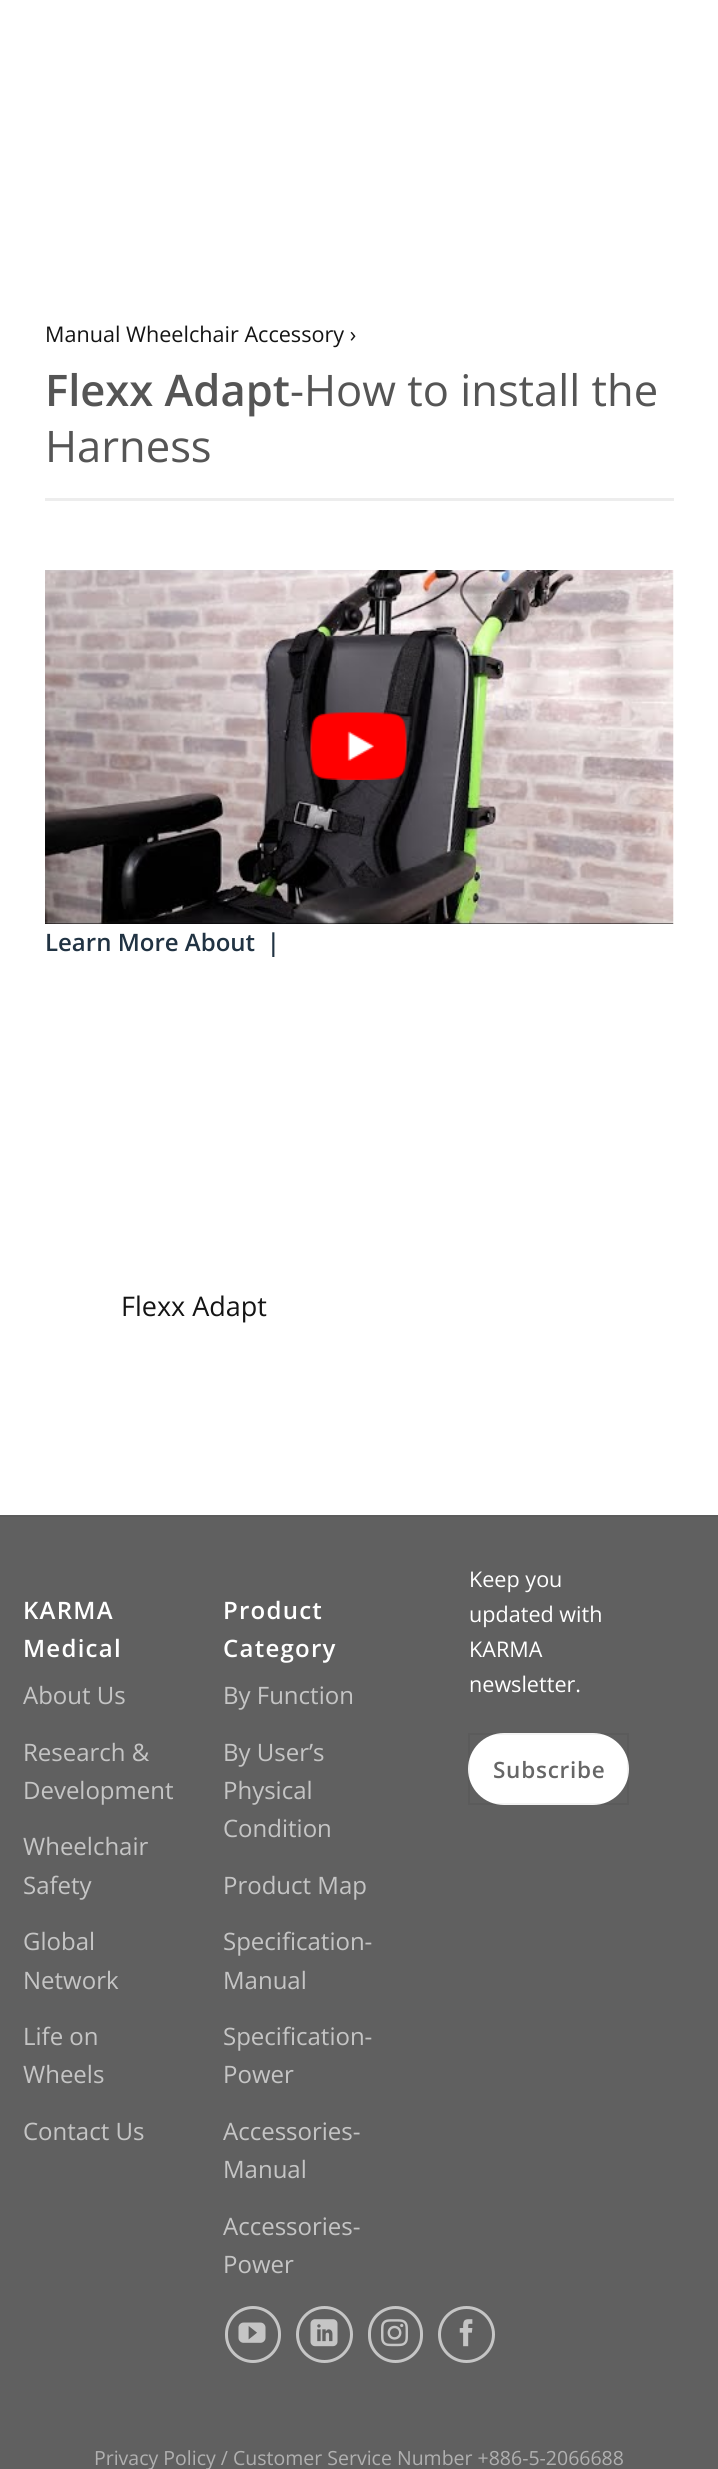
import math
import cairocffi as cairo

surface = cairo.ImageSurface(cairo.FORMAT_RGB24, 718, 2469)
ctx = cairo.Context(surface)
options = cairo.FontOptions()
options.set_hint_metrics(cairo.HINT_METRICS_OFF)
options.set_hint_style(cairo.HINT_STYLE_NONE)
ctx.set_font_options(options)
ctx.set_miter_limit(4)


def rgb(r, g, b):
    ctx.set_source_rgb(r / 255, g / 255, b / 255)


def face(family, size, italic, bold):
    ctx.select_font_face(family, cairo.FONT_SLANT_ITALIC if italic else cairo.FONT_SLANT_NORMAL, cairo.FONT_WEIGHT_BOLD if bold else cairo.FONT_WEIGHT_NORMAL)
    ctx.set_font_size(size)


def label(x, y, s):
    ctx.move_to(x, y)
    ctx.show_text(s)


def tracked(x, y, s, letter, word):
    ctx.move_to(x, y)
    for ch in s:
        ctx.show_text(ch)
        ctx.rel_move_to(letter + word * (ch == ' '), 0)


def rect(x, y, w, h):
    ctx.rectangle(x, y, w, h)
    ctx.fill()


def rrect(x, y, w, h, r):
    ctx.new_sub_path()
    for i, (u, v) in enumerate([(x + w - r, y + h - r), (x + r, y + h - r), (x + r, y + r), (x + w - r, y + r)]):
        ctx.arc(u, v, r, i * math.pi / 2, (i + 1) * math.pi / 2)
    ctx.close_path()


def image(path, x, y, w, h):
    ctx.save()
    ctx.set_source_surface(cairo.ImageSurface.create_from_png(path), x, y)
    ctx.rectangle(x, y, w, h)
    ctx.fill()
    ctx.restore()


rgb(255, 255, 255)
ctx.paint()
face('Open Sans', 21.6, 0, 0)
rgb(20, 20, 20)
label(45, 342, 'Manual Wheelchair Accessory ›')
face('Open Sans SemiBold', 43.5, 0, 0)
rgb(85, 85, 85)
label(45, 406, 'Flexx Adapt')
face('Open Sans', 43.5, 0, 0)
label(290, 406, '-How to install the')
label(45, 462, 'Harness')
rgb(237, 237, 237)
rect(45, 498, 629, 3)
image('image0.png', 45, 570, 629, 354)
image('image1.png', 310, 712, 97, 68)
face('Open Sans SemiBold', 24, 0, 0)
rgb(33, 51, 67)
label(45, 951, 'Learn More About')
face('WenQuanYi Zen Hei', 24, 0, 1)
label(261, 951, '｜')
face('Open Sans', 27, 0, 0)
rgb(20, 20, 20)
label(121, 1316, 'Flexx Adapt')
rgb(96, 96, 96)
rect(0, 1517, 718, 952)
rgb(91, 91, 91)
rect(0, 1515, 718, 2)
face('Open Sans SemiBold', 24, 0, 0)
rgb(255, 255, 255)
tracked(23, 1619, 'KARMA', 1.25, 0)
tracked(23, 1657, 'Medical', 1.25, 0)
face('Open Sans', 24, 0, 0)
rgb(197, 197, 197)
label(23, 1704, 'About Us')
label(23, 1761, 'Research &')
label(23, 1799, 'Development')
label(23, 1855, 'Wheelchair')
label(23, 1894, 'Safety')
label(23, 1950, 'Global')
label(23, 1989, 'Network')
label(23, 2045, 'Life on')
label(23, 2083, 'Wheels')
label(23, 2140, 'Contact Us')
face('Open Sans SemiBold', 24, 0, 0)
rgb(255, 255, 255)
tracked(223, 1619, 'Product', 1.25, 0)
tracked(223, 1657, 'Category', 1.25, 0)
face('Open Sans', 24, 0, 0)
rgb(197, 197, 197)
label(223, 1704, 'By Function')
label(223, 1761, 'By User’s')
label(223, 1799, 'Physical')
label(223, 1837, 'Condition')
label(223, 1894, 'Product Map')
label(223, 1950, 'Specification-')
label(223, 1989, 'Manual')
label(223, 2045, 'Specification-')
label(223, 2083, 'Power')
label(223, 2140, 'Accessories-')
label(223, 2178, 'Manual')
label(223, 2235, 'Accessories-')
label(223, 2273, 'Power')
face('Open Sans', 21.6, 0, 0)
rgb(255, 255, 255)
label(469, 1587, 'Keep you')
label(469, 1622, 'updated with')
label(469, 1657, 'KARMA')
label(469, 1692, 'newsletter.')
rrect(468, 1733, 161, 72, 36)
ctx.fill()
ctx.rectangle(469, 1734, 159, 70)
ctx.set_source_rgba(0, 0, 0, 0.05)
ctx.stroke()
face('Open Sans SemiBold', 22.5, 0, 0)
rgb(102, 102, 102)
tracked(493, 1778, 'Subscribe', 0.75, 0)
rrect(226.5, 2307.5, 53, 54, 26.5)
rgb(197, 197, 197)
ctx.set_line_width(3)
ctx.stroke()
image('image2.png', 238, 2322, 28, 21)
ctx.arc(324.5, 2334.5, 27, 0, 2 * math.pi)
ctx.stroke()
image('image3.png', 310, 2319, 28, 28)
rrect(369.5, 2307.5, 52, 54, 26)
ctx.stroke()
image('image4.png', 381, 2319, 27, 28)
ctx.arc(466.5, 2334.5, 27, 0, 2 * math.pi)
ctx.stroke()
image('image5.png', 459, 2319, 14, 28)
face('Open Sans', 19.5, 0, 0)
rgb(176, 176, 176)
label(94, 2465, 'Privacy Policy / Customer Service Number +886-5-2066688')
surface.write_to_png('render.png')
